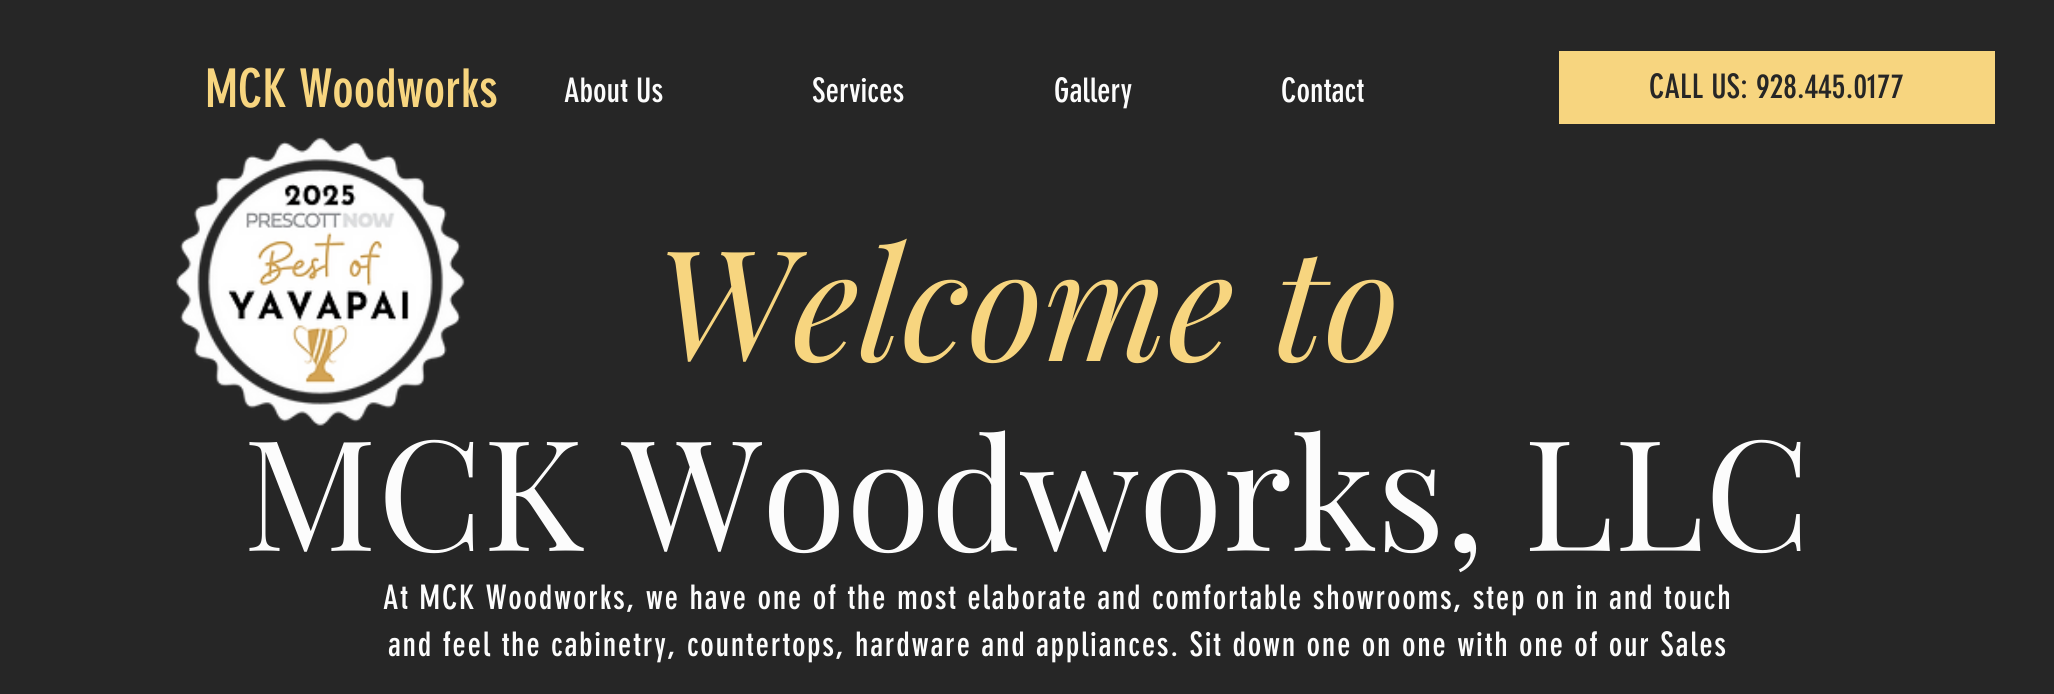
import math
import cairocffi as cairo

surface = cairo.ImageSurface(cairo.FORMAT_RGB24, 2054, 694)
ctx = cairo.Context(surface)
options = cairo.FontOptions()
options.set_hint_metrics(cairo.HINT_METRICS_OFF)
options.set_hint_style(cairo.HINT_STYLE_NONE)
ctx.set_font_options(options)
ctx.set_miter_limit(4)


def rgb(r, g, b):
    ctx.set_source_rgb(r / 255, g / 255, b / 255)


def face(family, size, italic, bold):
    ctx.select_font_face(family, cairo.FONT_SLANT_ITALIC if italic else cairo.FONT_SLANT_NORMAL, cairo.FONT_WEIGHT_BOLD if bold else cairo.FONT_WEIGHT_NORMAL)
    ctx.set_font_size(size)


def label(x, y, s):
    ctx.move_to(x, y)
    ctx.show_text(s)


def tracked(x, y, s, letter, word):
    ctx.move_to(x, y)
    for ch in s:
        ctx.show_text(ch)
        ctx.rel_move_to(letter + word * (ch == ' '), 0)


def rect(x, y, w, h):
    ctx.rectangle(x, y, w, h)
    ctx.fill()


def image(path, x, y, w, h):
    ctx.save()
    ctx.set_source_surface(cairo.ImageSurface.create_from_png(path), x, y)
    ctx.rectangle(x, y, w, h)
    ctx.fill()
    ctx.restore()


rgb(38, 38, 38)
ctx.paint()
face('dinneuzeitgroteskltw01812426', 52.5, 0, 0)
rgb(247, 213, 127)
label(205, 107, 'MCK Woodworks')
face('dinneuzeitgroteskltw01812426', 33.25, 0, 0)
rgb(252, 252, 252)
label(564, 102, 'About Us')
label(812, 102, 'Services')
label(1054, 102, 'Gallery')
label(1281, 102, 'Contact')
rgb(247, 213, 127)
rect(1559, 51, 436, 73)
rgb(38, 38, 38)
label(1649, 98, 'CALL US: 928.445.0177')
image('image0.png', 176, 137, 289, 289)
face('Playfair Display', 154, 1, 0)
rgb(247, 213, 127)
label(654, 361, 'Welcome to')
face('Playfair Display', 154, 0, 0)
rgb(252, 252, 252)
label(243, 551, 'MCK Woodworks, LLC')
face('dinneuzeitgroteskltw01812426', 33.25, 0, 0)
tracked(383, 609, 'At MCK Woodworks, we have one of the most elaborate and comfortable showrooms, step on in and touch', 1.66, 0)
tracked(388, 656, 'and feel the cabinetry, countertops, hardware and appliances. Sit down one on one with one of our Sales', 1.66, 0)
surface.write_to_png('render.png')
